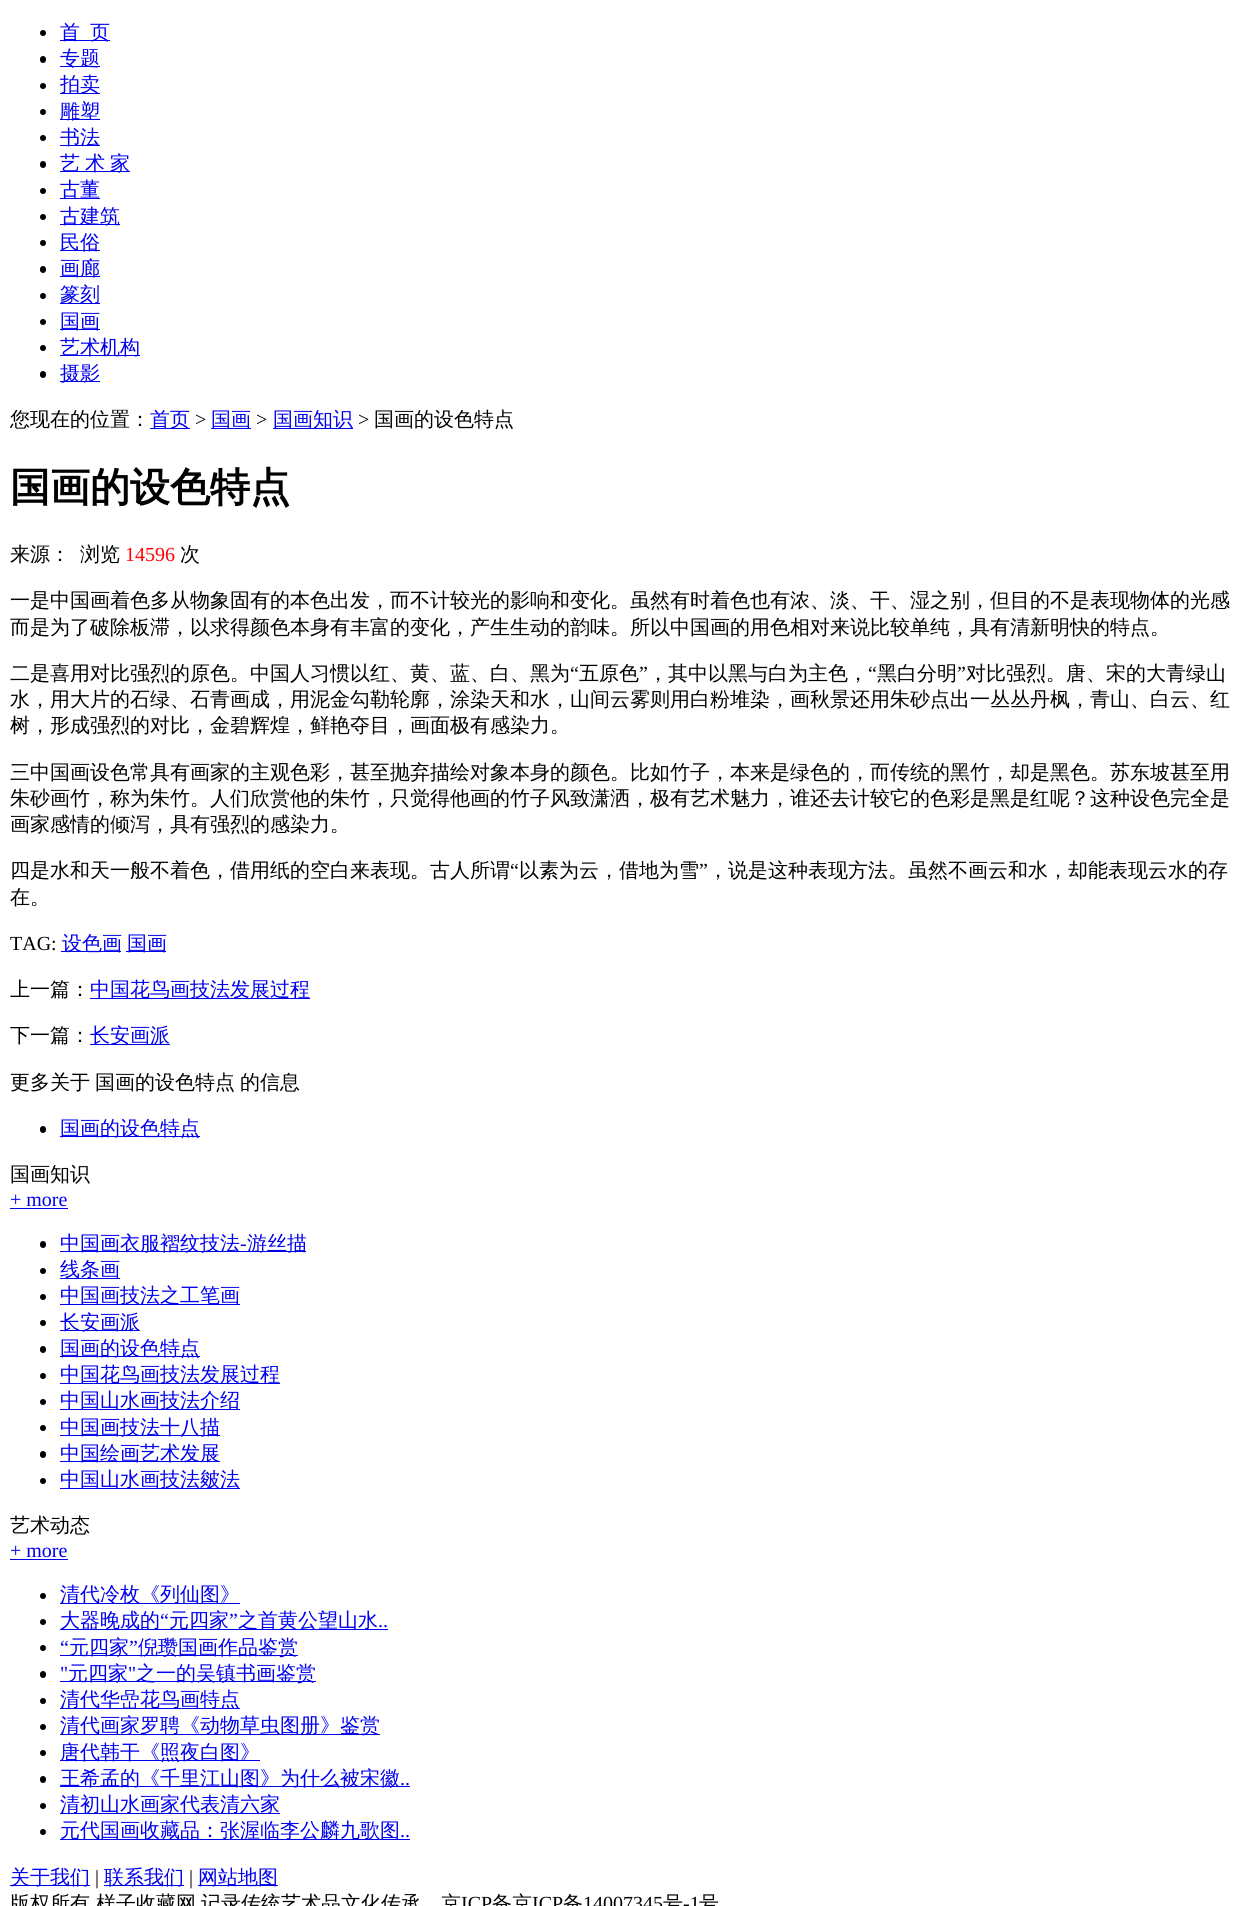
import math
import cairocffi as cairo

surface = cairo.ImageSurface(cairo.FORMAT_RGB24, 1244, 1906)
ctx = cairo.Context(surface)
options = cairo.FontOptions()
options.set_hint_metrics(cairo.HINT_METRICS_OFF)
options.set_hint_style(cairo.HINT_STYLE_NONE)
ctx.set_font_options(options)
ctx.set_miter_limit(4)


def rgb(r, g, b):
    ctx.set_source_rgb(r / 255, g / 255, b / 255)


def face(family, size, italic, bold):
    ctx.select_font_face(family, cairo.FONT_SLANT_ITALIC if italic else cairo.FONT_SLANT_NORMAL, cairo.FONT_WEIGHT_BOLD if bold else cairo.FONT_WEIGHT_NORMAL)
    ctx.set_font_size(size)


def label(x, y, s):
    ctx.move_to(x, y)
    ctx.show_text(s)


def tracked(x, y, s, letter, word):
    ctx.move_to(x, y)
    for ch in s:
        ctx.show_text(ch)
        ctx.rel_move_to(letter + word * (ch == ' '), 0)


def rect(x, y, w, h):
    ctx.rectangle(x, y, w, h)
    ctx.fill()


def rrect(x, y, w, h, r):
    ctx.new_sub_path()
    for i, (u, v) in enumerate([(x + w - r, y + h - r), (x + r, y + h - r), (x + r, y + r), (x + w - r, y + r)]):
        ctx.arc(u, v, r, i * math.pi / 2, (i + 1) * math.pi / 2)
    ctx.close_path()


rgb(255, 255, 255)
ctx.paint()
rgb(0, 0, 0)
ctx.arc(43, 33, 3, 0, 2 * math.pi)
ctx.fill()
rgb(0, 0, 238)
rect(60, 40, 50, 1)
face('WenQuanYi Zen Hei Medium', 20, 0, 0)
label(60, 39, '首')
label(90, 39, '页')
rgb(0, 0, 0)
rrect(40, 56, 6, 7, 3)
ctx.fill()
rgb(0, 0, 238)
rect(60, 66, 40, 1)
label(60, 65, '专题')
rgb(0, 0, 0)
ctx.new_path()
ctx.arc(43, 86, 3, 0, 2 * math.pi)
ctx.fill()
rgb(0, 0, 238)
rect(60, 93, 40, 1)
label(60, 91, '拍卖')
rgb(0, 0, 0)
ctx.new_path()
ctx.arc(43, 112, 3, 0, 2 * math.pi)
ctx.fill()
rgb(0, 0, 238)
rect(60, 119, 40, 1)
label(60, 118, '雕塑')
rgb(0, 0, 0)
ctx.new_path()
ctx.arc(43, 138, 3, 0, 2 * math.pi)
ctx.fill()
rgb(0, 0, 238)
rect(60, 145, 40, 1)
label(60, 144, '书法')
rgb(0, 0, 0)
rrect(40, 161, 6, 7, 3)
ctx.fill()
rgb(0, 0, 238)
rect(60, 171, 70, 1)
tracked(60, 170, '艺 术 家', 0, -1)
rgb(0, 0, 0)
ctx.new_path()
ctx.arc(43, 191, 3, 0, 2 * math.pi)
ctx.fill()
rgb(0, 0, 238)
rect(60, 198, 40, 1)
label(60, 196, '古董')
rgb(0, 0, 0)
ctx.new_path()
ctx.arc(43, 217, 3, 0, 2 * math.pi)
ctx.fill()
rgb(0, 0, 238)
rect(60, 224, 60, 1)
label(60, 223, '古建筑')
rgb(0, 0, 0)
ctx.new_path()
ctx.arc(43, 243, 3, 0, 2 * math.pi)
ctx.fill()
rgb(0, 0, 238)
rect(60, 250, 40, 1)
label(60, 249, '民俗')
rgb(0, 0, 0)
rrect(40, 266, 6, 7, 3)
ctx.fill()
rgb(0, 0, 238)
rect(60, 276, 40, 1)
label(60, 275, '画廊')
rgb(0, 0, 0)
ctx.new_path()
ctx.arc(43, 296, 3, 0, 2 * math.pi)
ctx.fill()
rgb(0, 0, 238)
rect(60, 303, 40, 1)
label(60, 301, '篆刻')
rgb(0, 0, 0)
ctx.new_path()
ctx.arc(43, 322, 3, 0, 2 * math.pi)
ctx.fill()
rgb(0, 0, 238)
rect(60, 329, 40, 1)
label(60, 328, '国画')
rgb(0, 0, 0)
ctx.new_path()
ctx.arc(43, 348, 3, 0, 2 * math.pi)
ctx.fill()
rgb(0, 0, 238)
rect(60, 355, 80, 1)
label(60, 354, '艺术机构')
rgb(0, 0, 0)
rrect(40, 371, 6, 7, 3)
ctx.fill()
rgb(0, 0, 238)
rect(60, 381, 40, 1)
label(60, 380, '摄影')
rgb(0, 0, 0)
label(10, 426, '您现在的位置：')
rgb(0, 0, 238)
rect(150, 428, 40, 1)
label(150, 426, '首页')
face('Liberation Serif', 20, 0, 0)
rgb(0, 0, 0)
label(195, 426, '>')
rgb(0, 0, 238)
rect(211, 428, 40, 1)
face('WenQuanYi Zen Hei Medium', 20, 0, 0)
label(211, 426, '国画')
face('Liberation Serif', 20, 0, 0)
rgb(0, 0, 0)
label(256, 426, '>')
rgb(0, 0, 238)
rect(273, 428, 80, 1)
face('WenQuanYi Zen Hei Medium', 20, 0, 0)
label(273, 426, '国画知识')
face('Liberation Serif', 20, 0, 0)
rgb(0, 0, 0)
label(358, 426, '>')
face('WenQuanYi Zen Hei Medium', 20, 0, 0)
label(374, 426, '国画的设色特点')
face('WenQuanYi Zen Hei', 40, 0, 1)
label(10, 501, '国画的设色特点')
face('WenQuanYi Zen Hei Medium', 20, 0, 0)
label(10, 561, '来源：')
label(80, 561, '浏览')
face('Liberation Serif', 20, 0, 0)
rgb(255, 0, 0)
label(125, 561, '14596')
face('WenQuanYi Zen Hei Medium', 20, 0, 0)
rgb(0, 0, 0)
label(180, 561, '次')
label(10, 607, '一是中国画着色多从物象固有的本色出发，而不计较光的影响和变化。虽然有时着色也有浓、淡、干、湿之别，但目的不是表现物体的光感')
label(10, 634, '而是为了破除板滞，以求得颜色本身有丰富的变化，产生生动的韵味。所以中国画的用色相对来说比较单纯，具有清新明快的特点。')
label(10, 680, '二是喜用对比强烈的原色。中国人习惯以红、黄、蓝、白、黑为')
face('Liberation Serif', 20, 0, 0)
label(570, 680, '“')
face('WenQuanYi Zen Hei Medium', 20, 0, 0)
label(579, 680, '五原色')
face('Liberation Serif', 20, 0, 0)
label(639, 680, '”')
face('WenQuanYi Zen Hei Medium', 20, 0, 0)
label(648, 680, '，其中以黑与白为主色，')
face('Liberation Serif', 20, 0, 0)
label(868, 680, '“')
face('WenQuanYi Zen Hei Medium', 20, 0, 0)
label(877, 680, '黑白分明')
face('Liberation Serif', 20, 0, 0)
label(957, 680, '”')
face('WenQuanYi Zen Hei Medium', 20, 0, 0)
label(966, 680, '对比强烈。唐、宋的大青绿山')
label(10, 706, '水，用大片的石绿、石青画成，用泥金勾勒轮廓，涂染天和水，山间云雾则用白粉堆染，画秋景还用朱砂点出一丛丛丹枫，青山、白云、红')
label(10, 732, '树，形成强烈的对比，金碧辉煌，鲜艳夺目，画面极有感染力。')
label(10, 779, '三中国画设色常具有画家的主观色彩，甚至抛弃描绘对象本身的颜色。比如竹子，本来是绿色的，而传统的黑竹，却是黑色。苏东坡甚至用')
label(10, 805, '朱砂画竹，称为朱竹。人们欣赏他的朱竹，只觉得他画的竹子风致潇洒，极有艺术魅力，谁还去计较它的色彩是黑是红呢？这种设色完全是')
label(10, 831, '画家感情的倾泻，具有强烈的感染力。')
label(10, 877, '四是水和天一般不着色，借用纸的空白来表现。古人所谓')
face('Liberation Serif', 20, 0, 0)
label(510, 877, '“')
face('WenQuanYi Zen Hei Medium', 20, 0, 0)
label(519, 877, '以素为云，借地为雪')
face('Liberation Serif', 20, 0, 0)
label(699, 877, '”')
face('WenQuanYi Zen Hei Medium', 20, 0, 0)
label(708, 877, '，说是这种表现方法。虽然不画云和水，却能表现云水的存')
label(10, 904, '在。')
face('Liberation Serif', 20, 0, 0)
label(10, 950, 'TAG:')
rgb(0, 0, 238)
rect(61, 951, 60, 1)
face('WenQuanYi Zen Hei Medium', 20, 0, 0)
label(62, 950, '设色画')
rect(126, 951, 40, 1)
label(127, 950, '国画')
rgb(0, 0, 0)
label(10, 996, '上一篇：')
rgb(0, 0, 238)
rect(90, 998, 220, 1)
label(90, 996, '中国花鸟画技法发展过程')
rgb(0, 0, 0)
label(10, 1042, '下一篇：')
rgb(0, 0, 238)
rect(90, 1044, 80, 1)
label(90, 1042, '长安画派')
rgb(0, 0, 0)
label(10, 1089, '更多关于')
label(95, 1089, '国画的设色特点')
label(240, 1089, '的信息')
rrect(40, 1126, 6, 7, 3)
ctx.fill()
rgb(0, 0, 238)
rect(60, 1136, 140, 1)
label(60, 1135, '国画的设色特点')
rgb(0, 0, 0)
label(10, 1181, '国画知识')
face('Liberation Serif', 20, 0, 0)
rgb(0, 0, 238)
label(10, 1206, '+ more')
rect(10, 1208, 58, 1)
rgb(0, 0, 0)
rrect(40, 1241, 6, 7, 3)
ctx.fill()
rgb(0, 0, 238)
rect(60, 1251, 246, 1)
face('WenQuanYi Zen Hei Medium', 20, 0, 0)
label(60, 1250, '中国画衣服褶纹技法')
face('Liberation Serif', 20, 0, 0)
label(240, 1250, '-')
face('WenQuanYi Zen Hei Medium', 20, 0, 0)
label(247, 1250, '游丝描')
rgb(0, 0, 0)
ctx.new_path()
ctx.arc(43, 1271, 3, 0, 2 * math.pi)
ctx.fill()
rgb(0, 0, 238)
rect(60, 1278, 60, 1)
label(60, 1276, '线条画')
rgb(0, 0, 0)
ctx.new_path()
ctx.arc(43, 1297, 3, 0, 2 * math.pi)
ctx.fill()
rgb(0, 0, 238)
rect(60, 1304, 180, 1)
label(60, 1302, '中国画技法之工笔画')
rgb(0, 0, 0)
ctx.new_path()
ctx.arc(43, 1323, 3, 0, 2 * math.pi)
ctx.fill()
rgb(0, 0, 238)
rect(60, 1330, 80, 1)
label(60, 1329, '长安画派')
rgb(0, 0, 0)
rrect(40, 1346, 6, 7, 3)
ctx.fill()
rgb(0, 0, 238)
rect(60, 1356, 140, 1)
label(60, 1355, '国画的设色特点')
rgb(0, 0, 0)
ctx.new_path()
ctx.arc(43, 1376, 3, 0, 2 * math.pi)
ctx.fill()
rgb(0, 0, 238)
rect(60, 1383, 220, 1)
label(60, 1381, '中国花鸟画技法发展过程')
rgb(0, 0, 0)
ctx.new_path()
ctx.arc(43, 1402, 3, 0, 2 * math.pi)
ctx.fill()
rgb(0, 0, 238)
rect(60, 1409, 180, 1)
label(60, 1407, '中国山水画技法介绍')
rgb(0, 0, 0)
ctx.new_path()
ctx.arc(43, 1428, 3, 0, 2 * math.pi)
ctx.fill()
rgb(0, 0, 238)
rect(60, 1435, 160, 1)
label(60, 1434, '中国画技法十八描')
rgb(0, 0, 0)
rrect(40, 1451, 6, 7, 3)
ctx.fill()
rgb(0, 0, 238)
rect(60, 1461, 160, 1)
label(60, 1460, '中国绘画艺术发展')
rgb(0, 0, 0)
ctx.new_path()
ctx.arc(43, 1481, 3, 0, 2 * math.pi)
ctx.fill()
rgb(0, 0, 238)
rect(60, 1488, 180, 1)
label(60, 1486, '中国山水画技法皴法')
rgb(0, 0, 0)
label(10, 1532, '艺术动态')
face('Liberation Serif', 20, 0, 0)
rgb(0, 0, 238)
label(10, 1557, '+ more')
rect(10, 1559, 58, 1)
rgb(0, 0, 0)
ctx.new_path()
ctx.arc(43, 1596, 3, 0, 2 * math.pi)
ctx.fill()
rgb(0, 0, 238)
rect(60, 1603, 180, 1)
face('WenQuanYi Zen Hei Medium', 20, 0, 0)
label(60, 1601, '清代冷枚《列仙图》')
rect(60, 1629, 328, 1)
label(60, 1627, '大器晚成的')
face('Liberation Serif', 20, 0, 0)
label(160, 1627, '“')
face('WenQuanYi Zen Hei Medium', 20, 0, 0)
label(169, 1627, '元四家')
face('Liberation Serif', 20, 0, 0)
label(229, 1627, '”')
face('WenQuanYi Zen Hei Medium', 20, 0, 0)
label(238, 1627, '之首黄公望山水')
rgb(0, 0, 0)
ctx.new_path()
ctx.arc(43, 1622, 3, 0, 2 * math.pi)
ctx.fill()
face('Liberation Serif', 20, 0, 0)
rgb(0, 0, 238)
label(378, 1627, '..')
label(60, 1654, '“')
rect(60, 1655, 238, 1)
face('WenQuanYi Zen Hei Medium', 20, 0, 0)
label(69, 1654, '元四家')
face('Liberation Serif', 20, 0, 0)
label(129, 1654, '”')
face('WenQuanYi Zen Hei Medium', 20, 0, 0)
label(138, 1654, '倪瓒国画作品鉴赏')
rgb(0, 0, 0)
ctx.new_path()
ctx.arc(43, 1648, 3, 0, 2 * math.pi)
ctx.fill()
face('Liberation Serif', 20, 0, 0)
rgb(0, 0, 238)
label(60, 1680, '"')
rect(60, 1681, 256, 1)
face('WenQuanYi Zen Hei Medium', 20, 0, 0)
label(68, 1680, '元四家')
face('Liberation Serif', 20, 0, 0)
label(128, 1680, '"')
face('WenQuanYi Zen Hei Medium', 20, 0, 0)
label(136, 1680, '之一的吴镇书画鉴赏')
rgb(0, 0, 0)
rrect(40, 1671, 6, 7, 3)
ctx.fill()
ctx.arc(43, 1701, 3, 0, 2 * math.pi)
ctx.fill()
rgb(0, 0, 238)
rect(60, 1708, 180, 1)
label(60, 1706, '清代华嵒花鸟画特点')
rgb(0, 0, 0)
ctx.new_path()
ctx.arc(43, 1727, 3, 0, 2 * math.pi)
ctx.fill()
rgb(0, 0, 238)
rect(60, 1734, 320, 1)
label(60, 1732, '清代画家罗聘《动物草虫图册》鉴赏')
rgb(0, 0, 0)
ctx.new_path()
ctx.arc(43, 1753, 3, 0, 2 * math.pi)
ctx.fill()
rgb(0, 0, 238)
rect(60, 1760, 200, 1)
label(60, 1759, '唐代韩干《照夜白图》')
rgb(0, 0, 0)
rrect(40, 1776, 6, 7, 3)
ctx.fill()
rgb(0, 0, 238)
rect(60, 1786, 350, 1)
label(60, 1785, '王希孟的《千里江山图》为什么被宋徽')
face('Liberation Serif', 20, 0, 0)
label(400, 1785, '..')
rgb(0, 0, 0)
ctx.new_path()
ctx.arc(43, 1806, 3, 0, 2 * math.pi)
ctx.fill()
rgb(0, 0, 238)
rect(60, 1813, 220, 1)
face('WenQuanYi Zen Hei Medium', 20, 0, 0)
label(60, 1811, '清初山水画家代表清六家')
rgb(0, 0, 0)
ctx.new_path()
ctx.arc(43, 1832, 3, 0, 2 * math.pi)
ctx.fill()
rgb(0, 0, 238)
rect(60, 1839, 350, 1)
label(60, 1837, '元代国画收藏品：张渥临李公麟九歌图')
face('Liberation Serif', 20, 0, 0)
label(400, 1837, '..')
rect(10, 1885, 80, 1)
face('WenQuanYi Zen Hei Medium', 20, 0, 0)
label(10, 1884, '关于我们')
face('Liberation Serif', 20, 0, 0)
rgb(0, 0, 0)
label(95, 1884, '|')
rgb(0, 0, 238)
rect(104, 1885, 80, 1)
face('WenQuanYi Zen Hei Medium', 20, 0, 0)
label(104, 1884, '联系我们')
face('Liberation Serif', 20, 0, 0)
rgb(0, 0, 0)
label(189, 1884, '|')
rgb(0, 0, 238)
rect(198, 1885, 80, 1)
face('WenQuanYi Zen Hei Medium', 20, 0, 0)
label(198, 1884, '网站地图')
rgb(0, 0, 0)
label(10, 1910, '版权所有')
label(96, 1910, '样子收藏网')
label(201, 1910, '记录传统艺术品文化传承　京')
face('Liberation Serif', 20, 0, 0)
label(461, 1910, 'ICP')
face('WenQuanYi Zen Hei Medium', 20, 0, 0)
label(492, 1910, '备京')
face('Liberation Serif', 20, 0, 0)
label(532, 1910, 'ICP')
face('WenQuanYi Zen Hei Medium', 20, 0, 0)
label(563, 1910, '备')
face('Liberation Serif', 20, 0, 0)
label(583, 1910, '14007345')
face('WenQuanYi Zen Hei Medium', 20, 0, 0)
label(663, 1910, '号')
face('Liberation Serif', 20, 0, 0)
label(683, 1910, '-1')
face('WenQuanYi Zen Hei Medium', 20, 0, 0)
label(699, 1910, '号')
surface.write_to_png('render.png')
